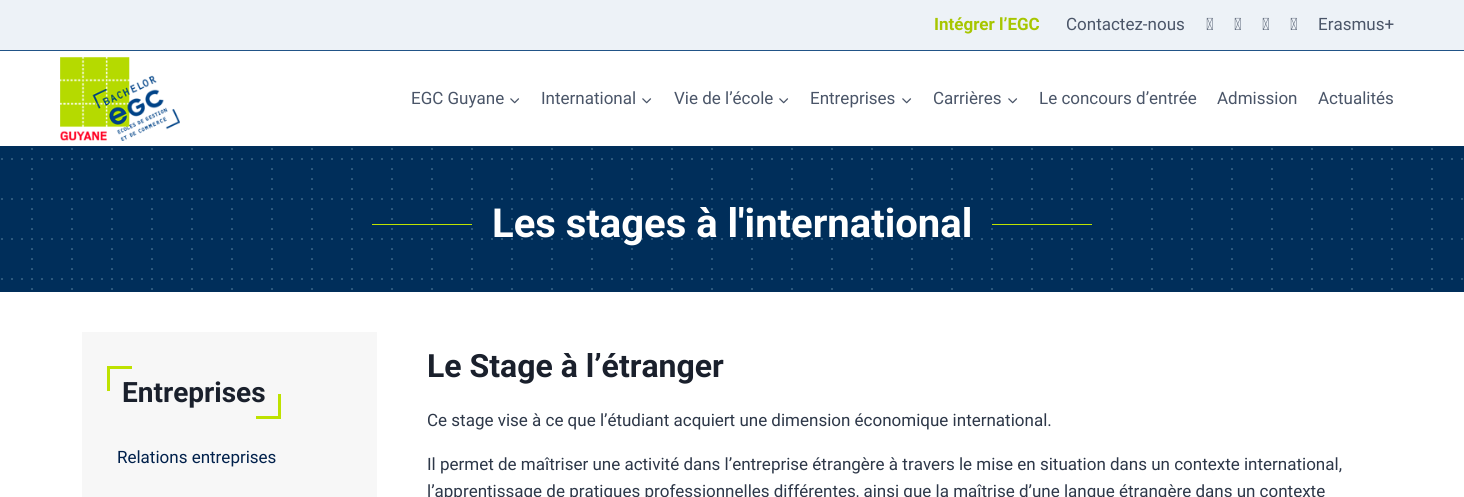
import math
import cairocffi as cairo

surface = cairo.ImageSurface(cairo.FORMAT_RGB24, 1464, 497)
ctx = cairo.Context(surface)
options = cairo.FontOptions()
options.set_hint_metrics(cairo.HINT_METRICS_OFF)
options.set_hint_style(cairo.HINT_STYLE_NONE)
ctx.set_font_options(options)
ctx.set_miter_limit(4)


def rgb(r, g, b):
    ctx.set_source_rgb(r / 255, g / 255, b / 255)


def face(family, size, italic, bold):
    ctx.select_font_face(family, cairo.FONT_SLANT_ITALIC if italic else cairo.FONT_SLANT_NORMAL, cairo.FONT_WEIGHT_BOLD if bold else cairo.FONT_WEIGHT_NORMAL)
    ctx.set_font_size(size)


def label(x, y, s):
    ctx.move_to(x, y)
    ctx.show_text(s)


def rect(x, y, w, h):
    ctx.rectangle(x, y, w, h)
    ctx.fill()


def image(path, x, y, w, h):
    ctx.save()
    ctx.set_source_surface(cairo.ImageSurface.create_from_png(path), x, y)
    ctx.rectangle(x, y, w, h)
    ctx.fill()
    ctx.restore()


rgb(255, 255, 255)
ctx.paint()
rgb(237, 242, 247)
rect(0, 0, 1464, 50)
rgb(33, 83, 135)
rect(0, 50, 1464, 1)
face('Roboto', 17, 0, 1)
rgb(167, 198, 0)
label(934, 30, 'Intégrer l’EGC')
face('Roboto', 17, 0, 0)
rgb(74, 85, 104)
label(1066, 30, 'Contactez-nous')
image('image0.png', 1206, 17, 7, 13)
image('image0.png', 1234, 17, 7, 13)
image('image0.png', 1262, 17, 7, 13)
image('image0.png', 1290, 17, 7, 13)
label(1318, 30, 'Erasmus+')
image('image1.png', 60, 57, 120, 84)
label(411, 104, 'EGC Guyane')
image('image2.png', 510, 98, 10, 6)
label(541, 104, 'International')
image('image2.png', 642, 98, 10, 6)
label(674, 104, 'Vie de l’école')
image('image2.png', 779, 98, 10, 6)
label(810, 104, 'Entreprises')
image('image2.png', 902, 98, 10, 6)
label(933, 104, 'Carrières')
image('image2.png', 1008, 98, 10, 6)
label(1039, 104, 'Le concours d’entrée')
label(1217, 104, 'Admission')
label(1318, 104, 'Actualités')
image('image3.png', 0, 146, 1464, 146)
rgb(190, 226, 0)
rect(372, 224, 100, 1)
face('Roboto', 40, 0, 1)
rgb(255, 255, 255)
label(492, 237, 'Les stages à l\'international')
rgb(190, 226, 0)
rect(992, 224, 100, 1)
rgb(247, 247, 247)
rect(82, 332, 295, 165)
rgb(190, 226, 0)
rect(107, 366, 25, 3)
rect(107, 366, 3, 25)
face('Roboto', 28, 0, 1)
rgb(26, 32, 44)
label(122, 402, 'Entreprises')
rgb(190, 226, 0)
rect(278, 394, 3, 25)
rect(256, 416, 25, 3)
face('Roboto', 17, 0, 0)
rgb(0, 32, 75)
label(117, 463, 'Relations entreprises')
face('Roboto', 32, 0, 1)
rgb(26, 32, 44)
label(427, 377, 'Le Stage à l’étranger')
face('Roboto', 17, 0, 0)
rgb(45, 55, 72)
label(427, 426, 'Ce stage vise à ce que l’étudiant acquiert une dimension économique international.')
label(427, 470, 'Il permet de maîtriser une activité dans l’entreprise étrangère à travers le mise en situation dans un contexte international,')
label(427, 497, 'l’apprentissage de pratiques professionnelles différentes, ainsi que la maîtrise d’une langue étrangère dans un contexte')
surface.write_to_png('render.png')
